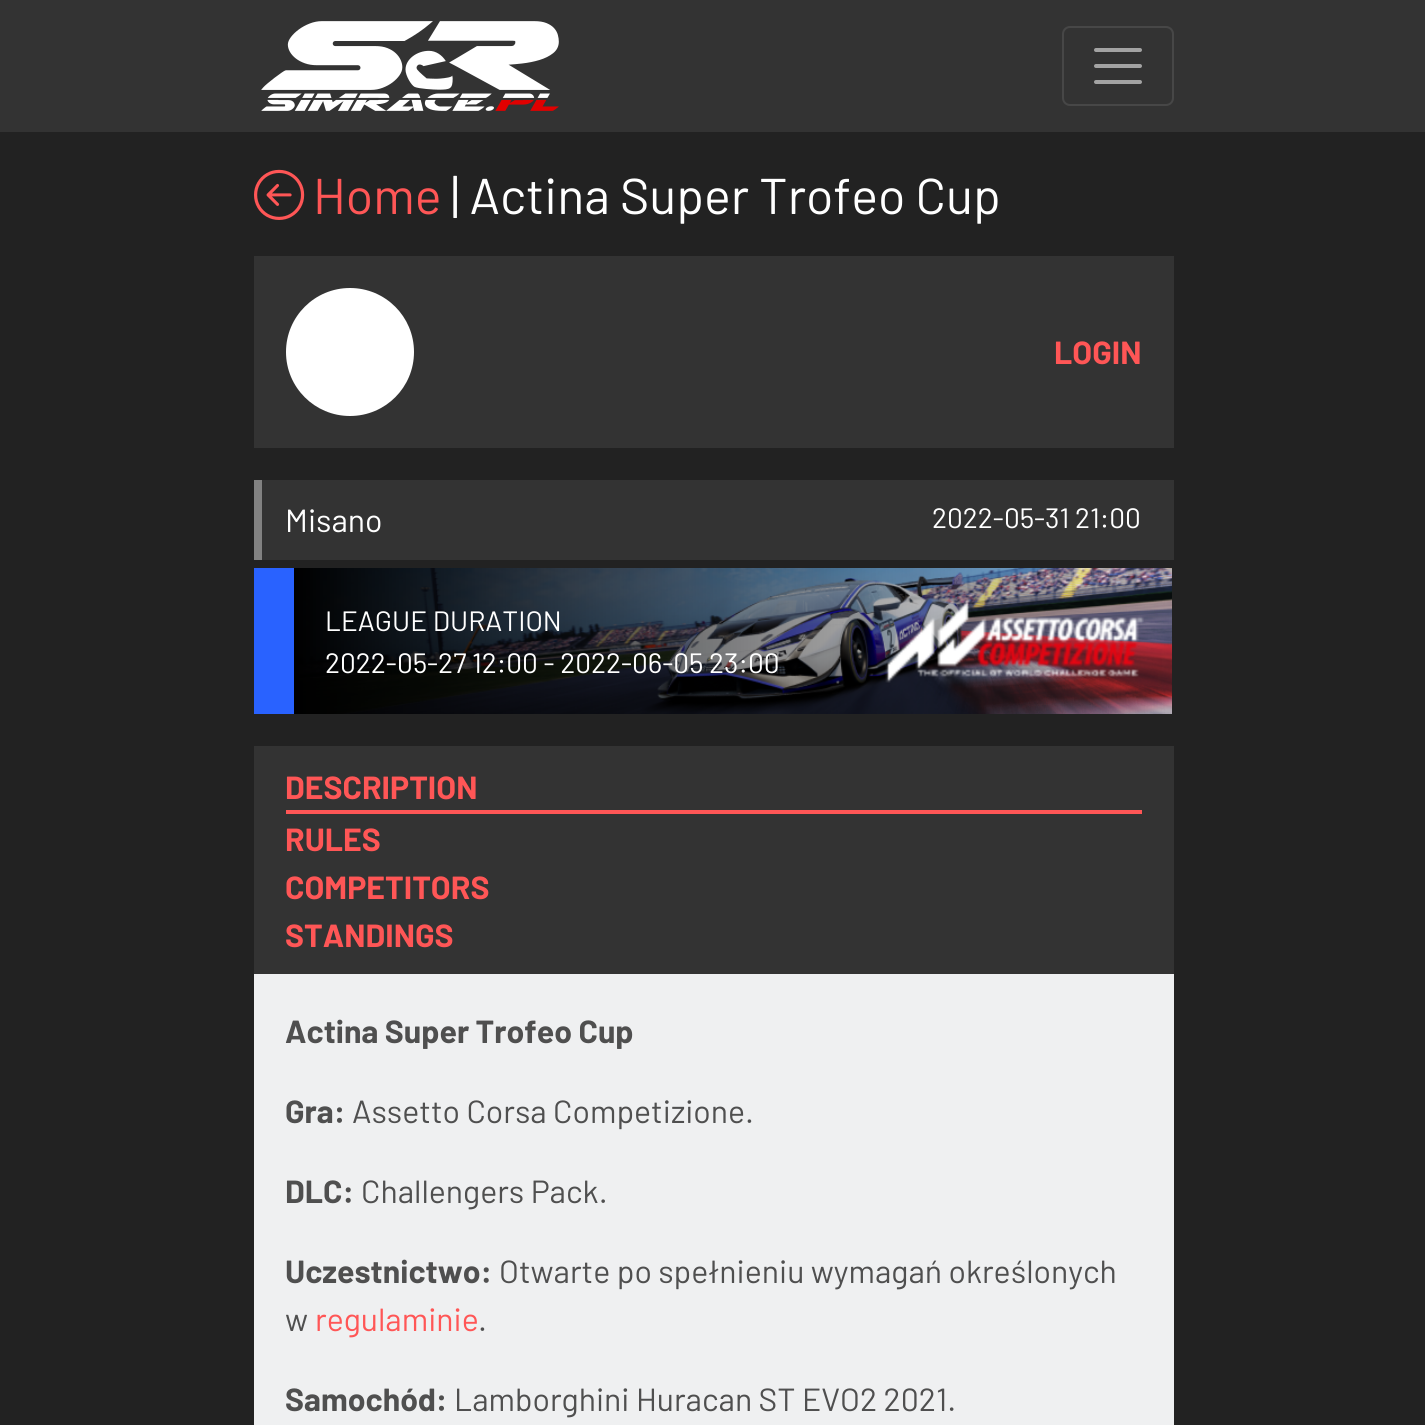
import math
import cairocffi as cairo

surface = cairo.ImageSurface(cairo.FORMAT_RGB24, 1425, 1425)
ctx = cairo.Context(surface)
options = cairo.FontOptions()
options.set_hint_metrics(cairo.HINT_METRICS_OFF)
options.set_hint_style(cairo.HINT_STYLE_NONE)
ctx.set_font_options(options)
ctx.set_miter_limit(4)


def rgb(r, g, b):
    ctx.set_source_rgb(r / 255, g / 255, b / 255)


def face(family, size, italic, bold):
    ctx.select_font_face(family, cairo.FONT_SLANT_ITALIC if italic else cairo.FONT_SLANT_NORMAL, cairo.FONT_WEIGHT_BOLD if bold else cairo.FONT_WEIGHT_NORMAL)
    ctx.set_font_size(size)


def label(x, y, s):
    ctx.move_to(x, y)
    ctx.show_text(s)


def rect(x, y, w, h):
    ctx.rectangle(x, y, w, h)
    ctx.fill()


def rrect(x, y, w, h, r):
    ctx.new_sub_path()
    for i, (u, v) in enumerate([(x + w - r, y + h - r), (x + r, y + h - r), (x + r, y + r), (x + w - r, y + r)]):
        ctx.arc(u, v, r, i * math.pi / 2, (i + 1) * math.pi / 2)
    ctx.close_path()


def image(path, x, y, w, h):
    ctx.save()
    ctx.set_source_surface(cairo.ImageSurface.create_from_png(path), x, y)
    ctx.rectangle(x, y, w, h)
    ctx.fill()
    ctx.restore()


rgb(34, 34, 34)
ctx.paint()
rgb(51, 51, 51)
rect(0, 0, 1425, 132)
image('image0.png', 261, 21, 298, 90)
rrect(1063, 27, 110, 78, 7)
rgb(71, 71, 71)
ctx.stroke()
ctx.new_path()
ctx.move_to(1096, 50)
ctx.line_to(1140, 50)
ctx.move_to(1096, 66)
ctx.line_to(1140, 66)
ctx.move_to(1096, 82)
ctx.line_to(1140, 82)
rgb(163, 163, 163)
ctx.set_line_width(4)
ctx.set_line_cap(cairo.LINE_CAP_ROUND)
ctx.stroke()
image('image1.png', 254, 169, 51, 51)
face('Barlow', 50.25, 0, 0)
rgb(255, 86, 86)
label(313, 214, 'Home')
rgb(255, 255, 255)
label(451, 214, '| Actina Super Trofeo Cup')
rgb(51, 51, 51)
rect(254, 256, 920, 192)
rgb(255, 255, 255)
ctx.new_path()
ctx.arc(350, 352, 64, 0, 2 * math.pi)
ctx.fill()
face('Barlow', 32, 0, 1)
rgb(255, 86, 86)
label(1054, 364, 'LOGIN')
rgb(51, 51, 51)
rect(262, 480, 912, 80)
rgb(130, 130, 130)
rect(254, 480, 8, 80)
face('Barlow', 32, 0, 0)
rgb(255, 255, 255)
label(285, 532, 'Misano')
face('Barlow', 28, 0, 0)
label(932, 528, '2022-05-31 21:00')
rgb(41, 98, 255)
rect(254, 568, 40, 146)
image('image2.png', 294, 568, 878, 146)
rgb(255, 255, 255)
label(325, 631, 'LEAGUE DURATION')
label(325, 673, '2022-05-27 12:00 - 2022-06-05 23:00')
image('image3.png', 885, 601, 259, 82)
rgb(51, 51, 51)
rect(254, 746, 920, 228)
rgb(255, 86, 86)
rect(286, 810, 856, 4)
face('Barlow', 32, 0, 1)
label(285, 799, 'DESCRIPTION')
label(285, 851, 'RULES')
label(285, 899, 'COMPETITORS')
label(285, 947, 'STANDINGS')
rgb(239, 240, 241)
rect(254, 974, 920, 451)
rgb(79, 79, 79)
label(285, 1043, 'Actina Super Trofeo Cup')
label(285, 1123, 'Gra:')
face('Barlow', 32, 0, 0)
label(352, 1123, 'Assetto Corsa Competizione.')
face('Barlow', 32, 0, 1)
label(285, 1203, 'DLC:')
face('Barlow', 32, 0, 0)
label(361, 1203, 'Challengers Pack.')
face('Barlow', 32, 0, 1)
label(285, 1283, 'Uczestnictwo:')
face('Barlow', 32, 0, 0)
label(499, 1283, 'Otwarte po spełnieniu wymagań określonych')
label(285, 1331, 'w')
rgb(255, 86, 86)
label(315, 1331, 'regulaminie')
rgb(79, 79, 79)
label(478, 1331, '.')
face('Barlow', 32, 0, 1)
label(285, 1411, 'Samochód:')
face('Barlow', 32, 0, 0)
label(454, 1411, 'Lamborghini Huracan ST EVO2 2021.')
surface.write_to_png('render.png')
